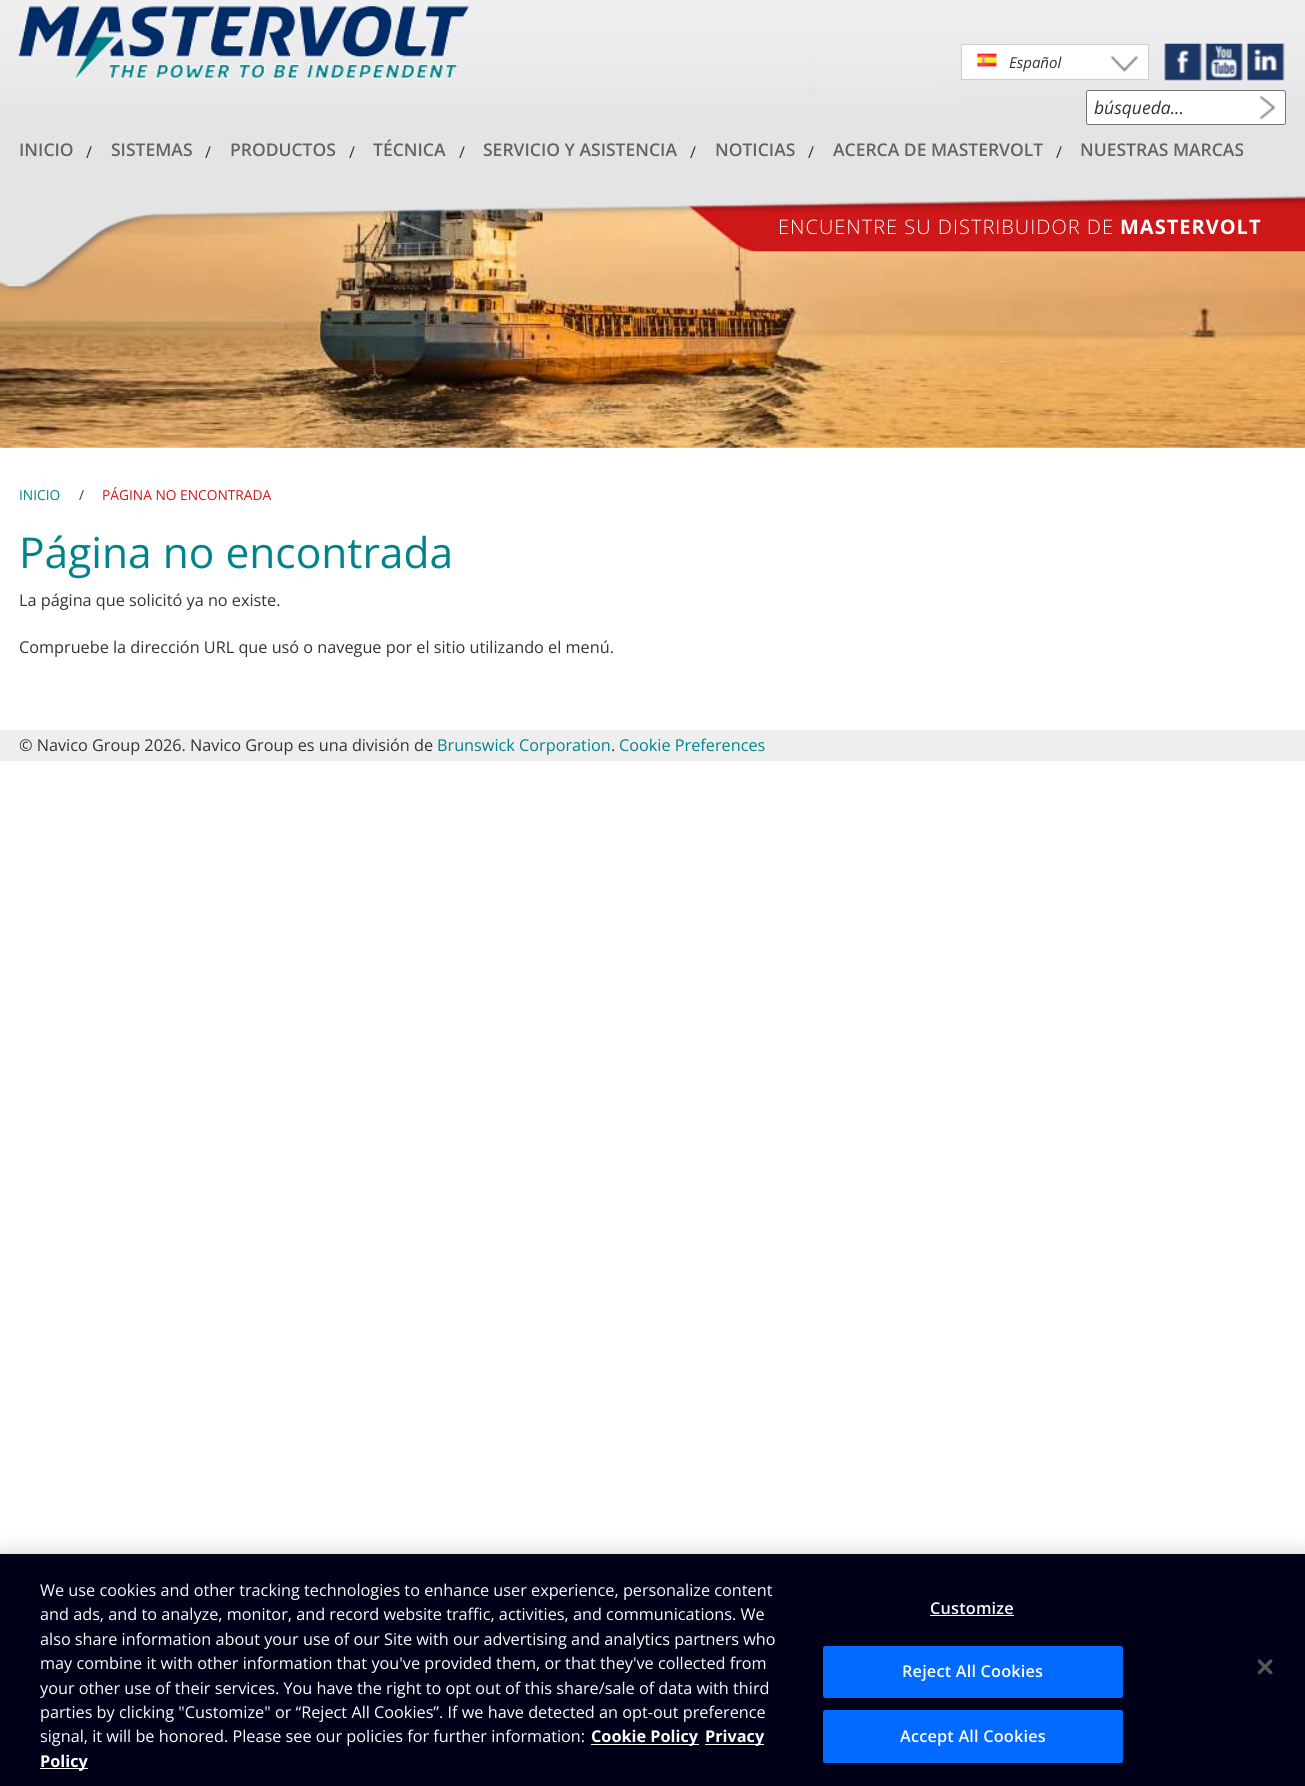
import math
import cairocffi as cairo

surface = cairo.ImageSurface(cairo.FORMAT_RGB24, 1305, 1786)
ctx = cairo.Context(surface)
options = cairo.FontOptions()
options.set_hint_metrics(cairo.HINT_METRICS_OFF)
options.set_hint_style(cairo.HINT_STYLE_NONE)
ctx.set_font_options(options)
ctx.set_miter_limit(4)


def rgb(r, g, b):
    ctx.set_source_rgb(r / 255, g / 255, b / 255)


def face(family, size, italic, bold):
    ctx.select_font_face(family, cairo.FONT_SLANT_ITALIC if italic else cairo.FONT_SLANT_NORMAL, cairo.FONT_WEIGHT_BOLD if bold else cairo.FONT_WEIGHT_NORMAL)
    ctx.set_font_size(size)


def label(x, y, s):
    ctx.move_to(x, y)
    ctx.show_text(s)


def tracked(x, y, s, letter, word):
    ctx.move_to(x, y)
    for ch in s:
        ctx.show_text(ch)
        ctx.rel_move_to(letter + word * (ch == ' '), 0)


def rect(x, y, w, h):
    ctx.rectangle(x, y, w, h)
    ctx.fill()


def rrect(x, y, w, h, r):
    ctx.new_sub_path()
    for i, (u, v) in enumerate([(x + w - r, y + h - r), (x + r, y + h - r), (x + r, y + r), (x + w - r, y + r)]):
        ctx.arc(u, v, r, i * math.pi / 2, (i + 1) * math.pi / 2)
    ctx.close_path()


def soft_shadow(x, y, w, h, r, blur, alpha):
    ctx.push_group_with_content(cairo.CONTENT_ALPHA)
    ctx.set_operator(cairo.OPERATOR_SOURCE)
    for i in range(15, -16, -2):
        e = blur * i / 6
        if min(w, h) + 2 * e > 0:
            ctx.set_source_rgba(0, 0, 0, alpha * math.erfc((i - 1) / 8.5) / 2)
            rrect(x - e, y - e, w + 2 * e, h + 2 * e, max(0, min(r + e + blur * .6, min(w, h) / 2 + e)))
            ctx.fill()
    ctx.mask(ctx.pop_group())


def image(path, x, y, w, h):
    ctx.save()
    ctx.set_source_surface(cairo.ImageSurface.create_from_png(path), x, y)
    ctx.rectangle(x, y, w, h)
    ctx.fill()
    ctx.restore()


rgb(255, 255, 255)
ctx.paint()
image('image8.png', 0, 204, 1305, 244)
image('image0.png', 0, 0, 1305, 291)
rgb(255, 255, 255)
ctx.rectangle(961.5, 44.5, 187, 35)
ctx.fill_preserve()
rgb(206, 206, 206)
ctx.set_line_width(1)
ctx.stroke()
image('image1.png', 977, 53, 20, 14)
face('Open Sans', 15, 1, 0)
rgb(51, 51, 51)
label(1009, 68, 'Español')
image('image2.png', 1110, 55, 29, 17)
image('image3.png', 1164, 43, 38, 38)
image('image4.png', 1205, 43, 38, 38)
image('image5.png', 1247, 43, 38, 38)
rgb(255, 255, 255)
rrect(1086.5, 90.5, 199, 34, 2)
ctx.fill_preserve()
rgb(118, 118, 118)
ctx.stroke()
face('Open Sans', 17.5, 1, 0)
rgb(51, 51, 51)
label(1094, 114, 'búsqueda...')
image('image6.png', 1259, 95, 17, 25)
image('image7.png', 18, 6, 451, 74)
face('Open Sans SemiBold', 17.5, 0, 0)
rgb(100, 99, 99)
label(19, 156, 'INICIO')
face('Open Sans', 16.25, 0, 0)
rgb(51, 51, 51)
label(86, 158, '/')
face('Open Sans SemiBold', 17.5, 0, 0)
rgb(100, 99, 99)
label(111, 156, 'SISTEMAS')
face('Open Sans', 16.25, 0, 0)
rgb(51, 51, 51)
label(205, 158, '/')
face('Open Sans SemiBold', 17.5, 0, 0)
rgb(100, 99, 99)
label(230, 156, 'PRODUCTOS')
face('Open Sans', 16.25, 0, 0)
rgb(51, 51, 51)
label(349, 158, '/')
face('Open Sans SemiBold', 17.5, 0, 0)
rgb(100, 99, 99)
label(373, 156, 'TÉCNICA')
face('Open Sans', 16.25, 0, 0)
rgb(51, 51, 51)
label(459, 158, '/')
face('Open Sans SemiBold', 17.5, 0, 0)
rgb(100, 99, 99)
label(483, 156, 'SERVICIO Y ASISTENCIA')
face('Open Sans', 16.25, 0, 0)
rgb(51, 51, 51)
label(690, 158, '/')
face('Open Sans SemiBold', 17.5, 0, 0)
rgb(100, 99, 99)
label(715, 156, 'NOTICIAS')
face('Open Sans', 16.25, 0, 0)
rgb(51, 51, 51)
label(808, 158, '/')
face('Open Sans SemiBold', 17.5, 0, 0)
rgb(100, 99, 99)
label(833, 156, 'ACERCA DE MASTERVOLT')
face('Open Sans', 16.25, 0, 0)
rgb(51, 51, 51)
label(1056, 158, '/')
face('Open Sans SemiBold', 17.5, 0, 0)
rgb(100, 99, 99)
label(1080, 156, 'NUESTRAS MARCAS')
face('Open Sans Light', 20, 0, 0)
rgb(255, 255, 255)
tracked(778, 234, 'ENCUENTRE SU DISTRIBUIDOR DE', 1, 0)
face('Open Sans', 20, 0, 1)
tracked(1120, 234, 'MASTERVOLT', 1, 0)
face('Open Sans', 13.75, 0, 0)
rgb(0, 131, 138)
label(19, 500, 'INICIO')
rgb(51, 51, 51)
label(79, 500, '/')
rgb(205, 23, 25)
label(102, 500, 'PÁGINA NO ENCONTRADA')
face('Open Sans', 42.5, 0, 0)
rgb(0, 131, 138)
label(19, 568, 'Página no encontrada')
face('Open Sans', 16.25, 0, 0)
rgb(51, 51, 51)
label(19, 606, 'La página que solicitó ya no existe.')
label(19, 653, 'Compruebe la dirección URL que usó o navegue por el sitio utilizando el menú.')
rgb(238, 238, 238)
rect(0, 730, 1305, 31)
rgb(51, 51, 51)
label(19, 751, '© Navico Group 2026. Navico Group es una división de')
rgb(0, 131, 138)
label(437, 751, 'Brunswick Corporation')
rgb(51, 51, 51)
label(611, 751, '.')
rgb(0, 131, 138)
label(619, 751, 'Cookie Preferences')
rgb(0, 0, 0)
soft_shadow(0, 1554, 1305, 232, 0, 11, 0.2)
rgb(0, 0, 24)
rect(0, 1554, 1305, 232)
rgb(255, 255, 255)
label(40, 1596, 'We use cookies and other tracking technologies to enhance user experience, personalize content')
label(40, 1620, 'and ads, and to analyze, monitor, and record website traffic, activities, and communications. We')
label(40, 1645, 'also share information about your use of our Site with our advertising and analytics partners who')
label(40, 1669, 'may combine it with other information that you\'ve provided them, or that they\'ve collected from')
label(40, 1694, 'your other use of their services. You have the right to opt out of this share/sale of data with third')
label(40, 1718, 'parties by clicking "Customize" or “Reject All Cookies”. If we have detected an opt-out preference')
label(40, 1742, 'signal, it will be honored. Please see our policies for further information:')
rect(591, 1744, 108, 1)
face('Open Sans', 16.25, 0, 1)
label(591, 1742, 'Cookie Policy')
rect(705, 1744, 59, 1)
label(705, 1742, 'Privacy')
rect(40, 1768, 48, 1)
label(40, 1767, 'Policy')
face('Open Sans SemiBold', 16.25, 0, 0)
tracked(930, 1614, 'Customize', 0.2, 0)
rect(930, 1615, 84, 1)
rgb(2, 106, 254)
rrect(823.5, 1646.5, 299, 51, 2)
ctx.fill_preserve()
ctx.stroke()
rgb(255, 255, 255)
tracked(902, 1677, 'Reject All Cookies', 0.2, 0)
rgb(2, 106, 254)
rrect(823.5, 1710.5, 299, 52, 2)
ctx.fill_preserve()
ctx.stroke()
rgb(255, 255, 255)
tracked(900, 1742, 'Accept All Cookies', 0.2, 0)
image('image9.png', 1258, 1659, 15, 15)
surface.write_to_png('render.png')
